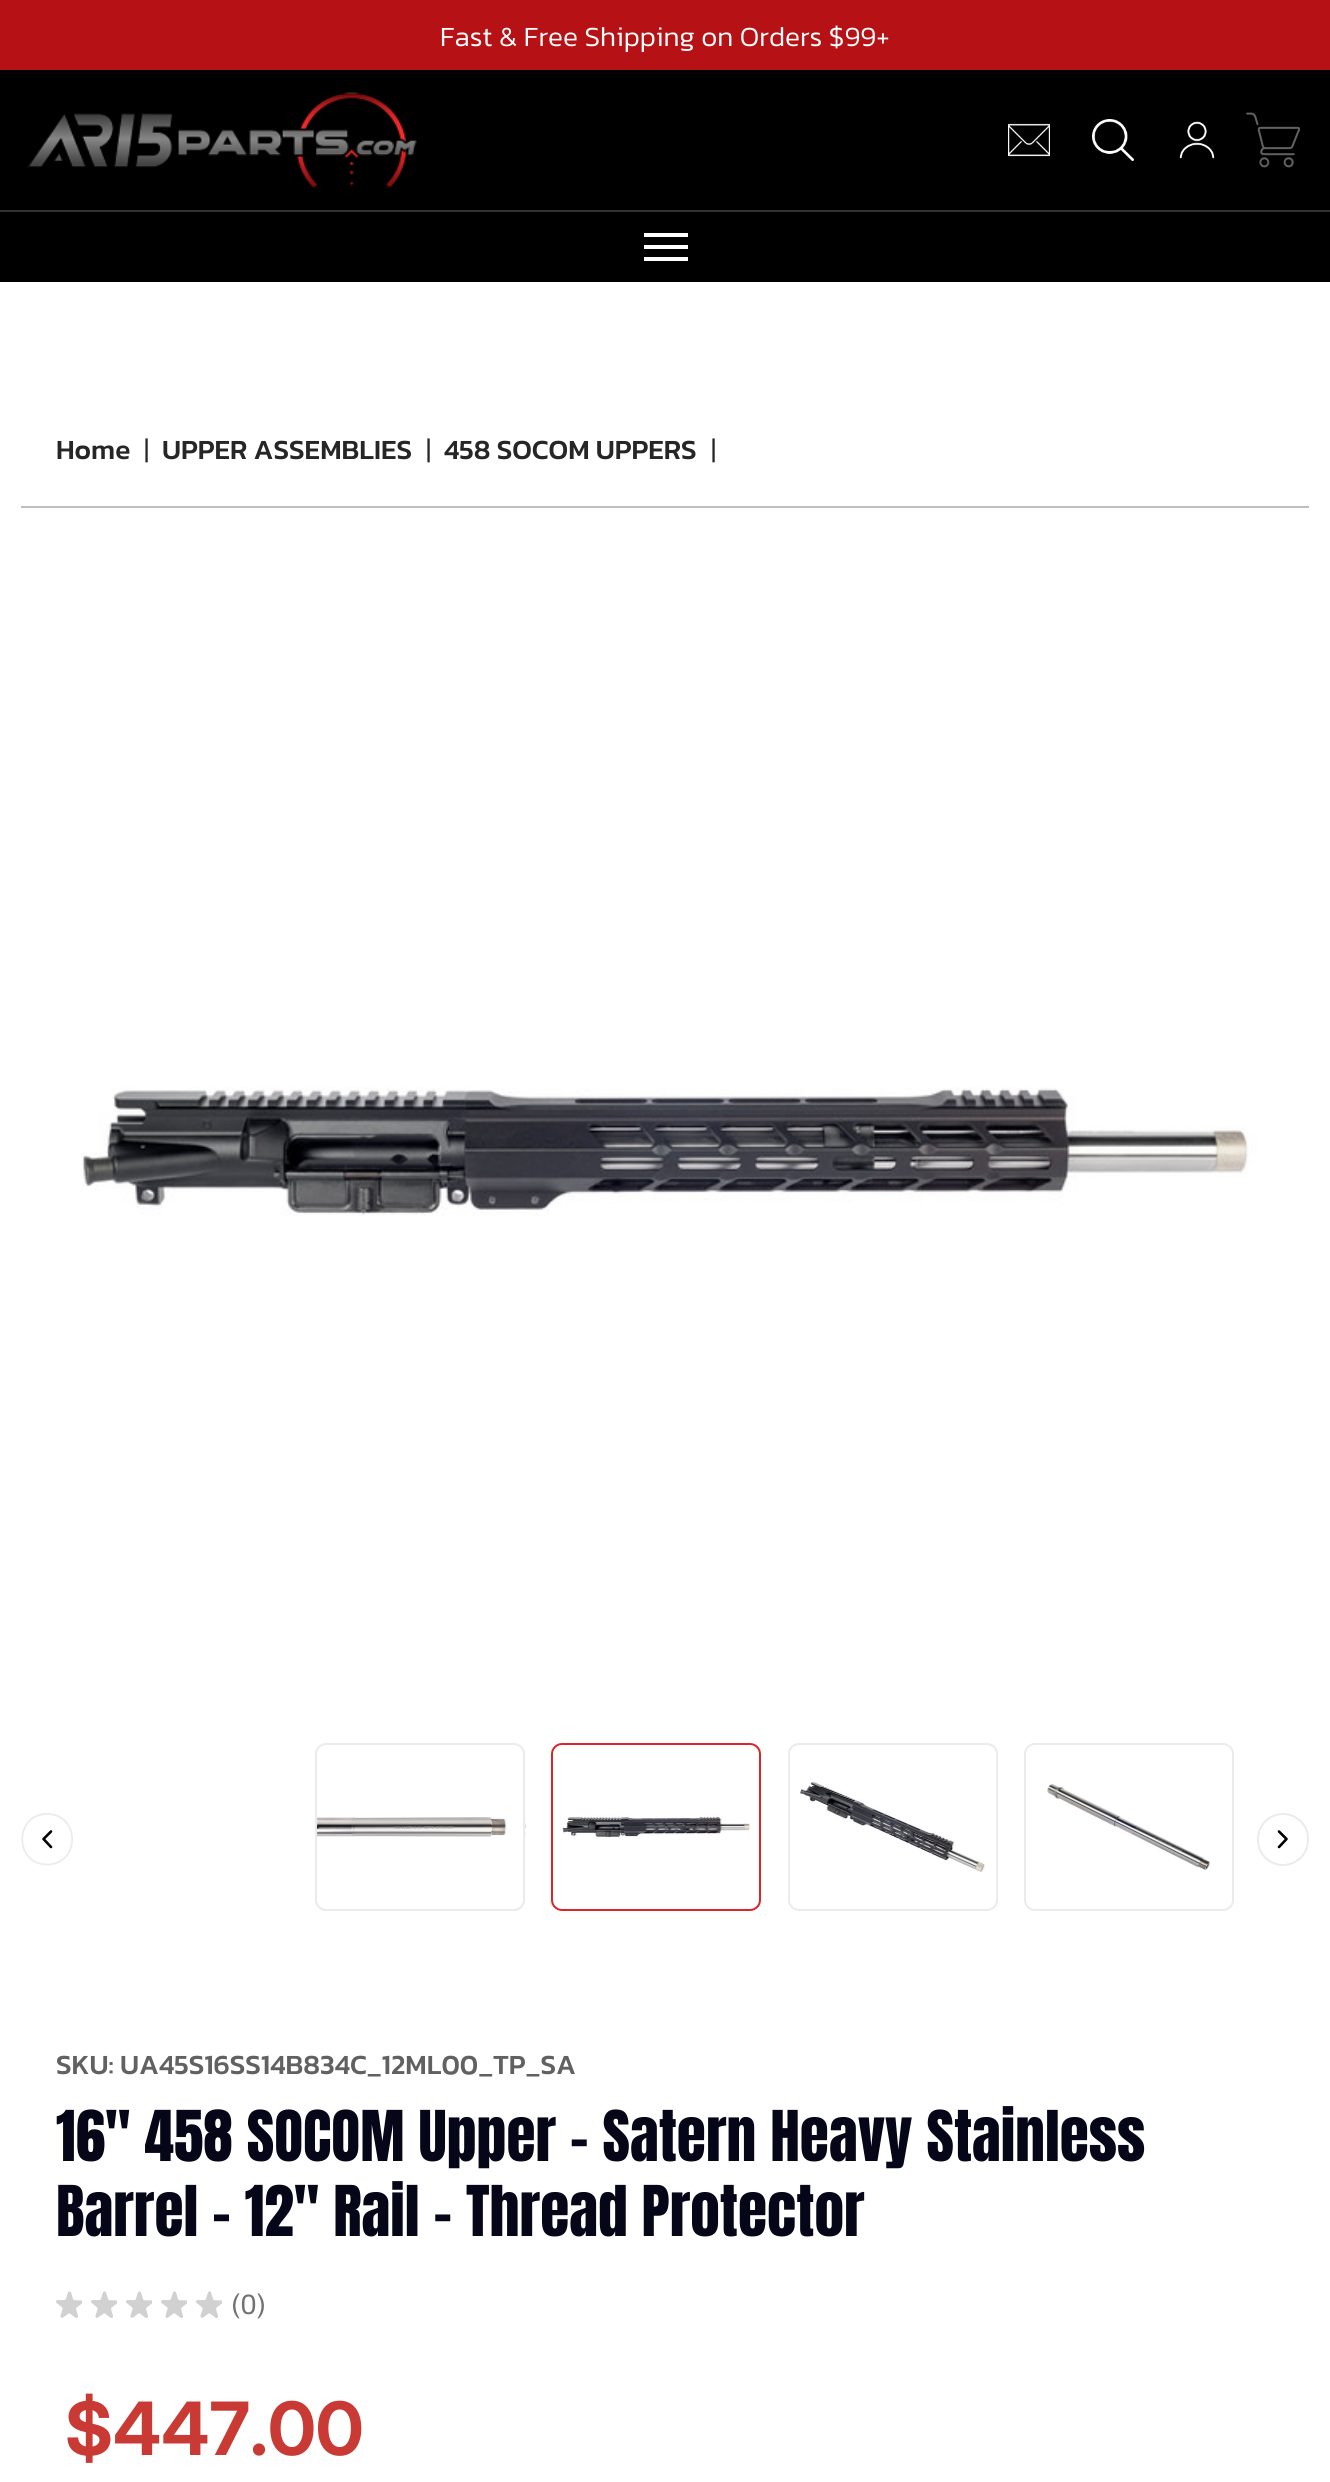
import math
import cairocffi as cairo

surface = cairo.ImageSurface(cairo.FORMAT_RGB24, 1330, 2482)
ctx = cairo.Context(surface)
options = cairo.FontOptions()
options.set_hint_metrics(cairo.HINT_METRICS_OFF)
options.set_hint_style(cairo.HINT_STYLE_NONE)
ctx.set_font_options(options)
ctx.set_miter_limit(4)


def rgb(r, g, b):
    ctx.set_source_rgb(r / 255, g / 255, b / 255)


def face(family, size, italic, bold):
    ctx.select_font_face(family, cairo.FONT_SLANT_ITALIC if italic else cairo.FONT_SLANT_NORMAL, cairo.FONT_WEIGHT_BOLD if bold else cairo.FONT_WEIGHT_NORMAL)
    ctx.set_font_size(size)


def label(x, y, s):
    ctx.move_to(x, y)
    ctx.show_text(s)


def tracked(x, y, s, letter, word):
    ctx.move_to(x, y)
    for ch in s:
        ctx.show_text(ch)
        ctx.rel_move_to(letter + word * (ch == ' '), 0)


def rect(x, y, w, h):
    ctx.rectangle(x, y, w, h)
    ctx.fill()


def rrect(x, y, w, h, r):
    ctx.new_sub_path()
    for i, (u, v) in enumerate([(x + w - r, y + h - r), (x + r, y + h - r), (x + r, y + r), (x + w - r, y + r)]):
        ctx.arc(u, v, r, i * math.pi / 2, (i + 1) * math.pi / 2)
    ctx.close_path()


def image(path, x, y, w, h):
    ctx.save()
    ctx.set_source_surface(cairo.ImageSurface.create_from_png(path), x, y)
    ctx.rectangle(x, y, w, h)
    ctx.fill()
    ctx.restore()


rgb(255, 255, 255)
ctx.paint()
rgb(182, 18, 21)
rect(0, 0, 1330, 70)
face('Kanit Light', 28, 0, 0)
rgb(255, 255, 255)
label(440, 46, 'Fast & Free Shipping on Orders $99+')
rgb(0, 0, 0)
rect(0, 70, 1330, 212)
rgb(51, 51, 51)
rect(0, 210, 1330, 2)
image('image0.png', 27, 92, 390, 97)
image('image1.png', 1008, 123, 42, 34)
image('image2.png', 1092, 119, 42, 42)
image('image3.png', 1179, 121, 36, 38)
image('image4.png', 1246, 112, 54, 56)
rgb(255, 255, 255)
rect(644, 233, 44, 4)
rect(644, 257, 44, 4)
rect(644, 245, 44, 4)
rgb(190, 190, 190)
rect(21, 506, 1288, 2)
face('Kanit Medium', 28, 0, 0)
rgb(38, 38, 38)
label(56, 459, 'Home')
face('Kanit Light', 28, 0, 0)
label(144, 459, '|')
face('Kanit Medium', 28, 0, 0)
label(162, 459, 'UPPER ASSEMBLIES')
face('Kanit Light', 28, 0, 0)
label(426, 459, '|')
face('Kanit Medium', 28, 0, 0)
label(444, 459, '458 SOCOM UPPERS')
face('Kanit Light', 28, 0, 0)
label(711, 459, '|')
image('image5.png', 81, 1087, 1176, 129)
ctx.new_path()
ctx.move_to(51, 1847)
ctx.line_to(43.5, 1839)
ctx.line_to(51, 1831.5)
rgb(0, 0, 0)
ctx.set_line_width(2.6)
ctx.set_line_cap(cairo.LINE_CAP_ROUND)
ctx.set_line_join(cairo.LINE_JOIN_ROUND)
ctx.stroke()
ctx.new_path()
ctx.move_to(47, 1814)
ctx.curve_to(14, 1814, 14, 1864.5, 47, 1864.5)
ctx.curve_to(80.5, 1864.5, 80.5, 1814, 47, 1814)
ctx.close_path()
rgb(235, 235, 235)
ctx.set_line_width(1.8)
ctx.set_line_cap(cairo.LINE_CAP_BUTT)
ctx.set_line_join(cairo.LINE_JOIN_MITER)
ctx.stroke()
image('image6.png', 317, 1817, 209, 20)
rrect(316, 1744, 208, 166, 10)
ctx.set_line_width(2)
ctx.stroke()
image('image7.png', 562, 1815, 189, 24)
rrect(552, 1744, 208, 166, 10)
rgb(220, 37, 42)
ctx.stroke()
image('image8.png', 800, 1782, 185, 90)
rrect(789, 1744, 208, 166, 10)
rgb(235, 235, 235)
ctx.stroke()
image('image9.png', 1047, 1783, 164, 87)
rrect(1025, 1744, 208, 166, 10)
ctx.stroke()
ctx.new_path()
ctx.move_to(1279, 1847)
ctx.line_to(1286.5, 1839)
ctx.line_to(1279, 1831.5)
rgb(0, 0, 0)
ctx.set_line_width(2.6)
ctx.set_line_cap(cairo.LINE_CAP_ROUND)
ctx.set_line_join(cairo.LINE_JOIN_ROUND)
ctx.stroke()
rrect(1258, 1814, 50, 51, 25)
rgb(235, 235, 235)
ctx.set_line_width(2)
ctx.set_line_cap(cairo.LINE_CAP_BUTT)
ctx.set_line_join(cairo.LINE_JOIN_MITER)
ctx.stroke()
face('Kanit Medium', 28, 0, 0)
rgb(97, 97, 97)
label(56, 2074, 'SKU: UA45S16SS14B834C_12ML00_TP_SA')
face('Anton', 59.5, 0, 0)
rgb(5, 6, 24)
label(56, 2161, '16" 458 SOCOM Upper - Satern Heavy Stainless')
label(56, 2236, 'Barrel - 12" Rail - Thread Protector')
image('image10.png', 56, 2291, 26, 27)
image('image10.png', 91, 2291, 26, 27)
image('image10.png', 126, 2291, 26, 27)
image('image10.png', 161, 2291, 26, 27)
image('image10.png', 196, 2291, 26, 27)
face('Archivo', 28, 0, 0)
rgb(115, 115, 115)
tracked(231, 2314, '(0)', -0.5, 0)
face('Inter', 73.5, 0, 1)
rgb(202, 58, 52)
label(65, 2455, '$447.00')
surface.write_to_png('render.png')
